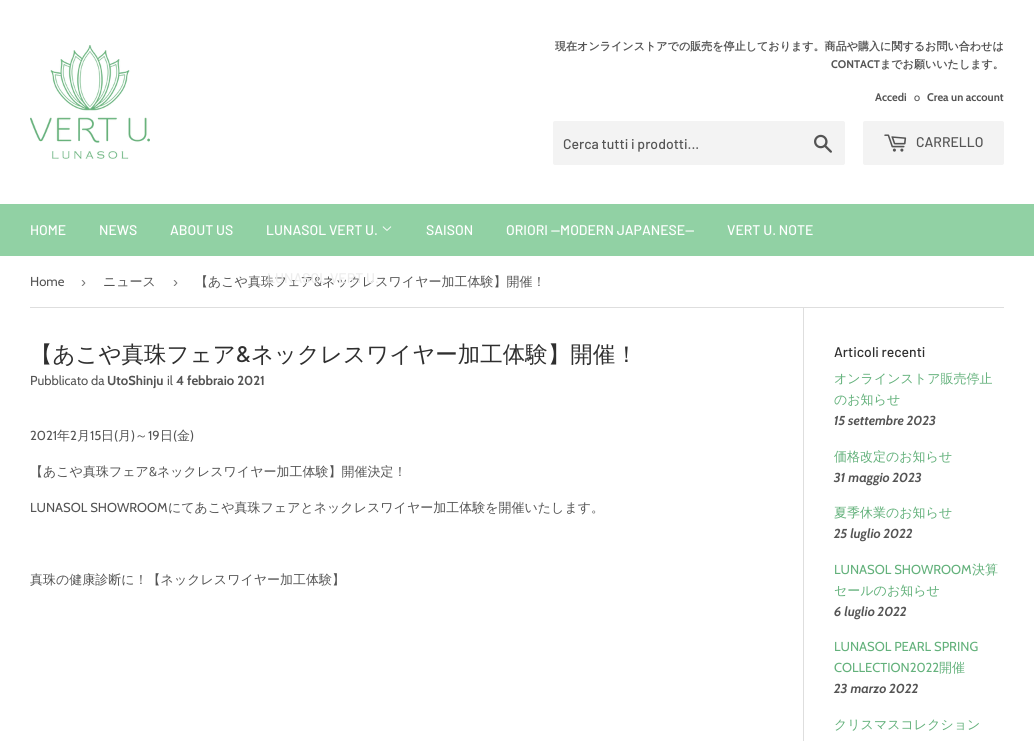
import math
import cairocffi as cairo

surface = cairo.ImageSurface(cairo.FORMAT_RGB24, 1034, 741)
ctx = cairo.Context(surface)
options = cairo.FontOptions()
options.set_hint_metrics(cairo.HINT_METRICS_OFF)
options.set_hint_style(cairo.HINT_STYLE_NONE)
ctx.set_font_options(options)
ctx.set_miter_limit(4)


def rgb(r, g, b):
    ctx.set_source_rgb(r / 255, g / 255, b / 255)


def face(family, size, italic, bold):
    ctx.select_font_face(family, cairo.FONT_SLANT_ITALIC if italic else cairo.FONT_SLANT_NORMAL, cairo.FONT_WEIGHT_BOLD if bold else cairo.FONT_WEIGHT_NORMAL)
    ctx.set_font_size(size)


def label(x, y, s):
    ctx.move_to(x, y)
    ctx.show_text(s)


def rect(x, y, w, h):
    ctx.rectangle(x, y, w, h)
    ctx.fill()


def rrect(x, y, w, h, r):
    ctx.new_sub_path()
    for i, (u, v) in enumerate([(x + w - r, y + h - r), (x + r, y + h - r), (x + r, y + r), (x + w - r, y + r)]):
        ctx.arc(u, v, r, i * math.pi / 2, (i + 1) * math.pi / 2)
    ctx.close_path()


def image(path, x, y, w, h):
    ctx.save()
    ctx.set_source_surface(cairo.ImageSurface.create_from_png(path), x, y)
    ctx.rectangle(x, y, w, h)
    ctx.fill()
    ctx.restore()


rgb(255, 255, 255)
ctx.paint()
image('image0.png', 30, 45, 120, 114)
face('WenQuanYi Zen Hei', 11.05, 0, 1)
rgb(84, 84, 84)
label(555, 50, '現在オンラインストアでの販売を停止しております。商品や購入に関するお問い合わせは')
face('Cabin', 11.05, 0, 1)
label(831, 68, 'CONTACT')
face('WenQuanYi Zen Hei', 11.05, 0, 1)
label(880, 68, 'までお願いいたします。')
face('Cabin', 11.05, 0, 1)
label(875, 101, 'Accedi')
face('Cabin', 11.05, 0, 0)
label(914, 101, 'o')
face('Cabin', 11.05, 0, 1)
label(927, 101, 'Crea un account')
rgb(243, 243, 243)
rrect(553, 121, 292, 44, 2)
ctx.fill()
face('Barlow Medium', 14, 0, 0)
rgb(84, 84, 84)
label(563, 149, 'Cerca tutti i prodotti...')
image('image1.png', 814, 134, 18, 19)
rgb(243, 243, 243)
rrect(863, 121, 141, 44, 2)
ctx.fill()
image('image2.png', 884, 134, 23, 18)
rgb(84, 84, 84)
label(916, 147, 'CARRELLO')
rgb(145, 209, 164)
rect(0, 204, 1034, 52)
rgb(255, 255, 255)
label(30, 235, 'HOME')
label(99, 235, 'NEWS')
label(170, 235, 'ABOUT US')
label(266, 235, 'LUNASOL VERT U.')
image('image3.png', 382, 226, 10, 5)
face('WenQuanYi Zen Hei Medium', 13, 0, 0)
rgb(84, 84, 84)
label(195, 286, '【あこや真珠フェア')
face('Cabin', 13, 0, 0)
label(314, 286, '&')
face('WenQuanYi Zen Hei Medium', 13, 0, 0)
label(322, 286, 'ネックレスワイヤー加工体験】開催！')
face('Barlow Medium', 14, 0, 0)
rgb(237, 237, 237)
label(267, 283, 'LUNASOL VERT U.')
rgb(255, 255, 255)
label(426, 235, 'SAISON')
label(506, 235, 'ORIORI —MODERN JAPANESE—')
label(727, 235, 'VERT U. NOTE')
rgb(222, 222, 222)
rect(30, 307, 974, 1)
face('Cabin', 13, 0, 0)
rgb(84, 84, 84)
label(30, 286, 'Home')
face('Liberation Sans', 15, 0, 0)
rgb(118, 118, 118)
label(81, 287, '›')
face('WenQuanYi Zen Hei Medium', 13, 0, 0)
rgb(84, 84, 84)
label(103, 286, 'ニュース')
face('Liberation Sans', 15, 0, 0)
rgb(118, 118, 118)
label(173, 287, '›')
face('WenQuanYi Zen Hei Medium', 22.5, 0, 0)
rgb(47, 47, 47)
label(30, 362, '【あこや真珠フェア')
face('Barlow Medium', 22.5, 0, 0)
label(236, 362, '&')
face('WenQuanYi Zen Hei Medium', 22.5, 0, 0)
label(251, 362, 'ネックレスワイヤー加工体験】開催！')
face('Cabin', 13, 0, 0)
rgb(84, 84, 84)
label(30, 385, 'Pubblicato da')
face('Cabin', 13, 0, 1)
label(107, 385, 'UtoShinju')
face('Cabin', 13, 0, 0)
label(167, 385, 'il')
face('Cabin', 13, 0, 1)
label(176, 385, '4 febbraio 2021')
face('Cabin', 13, 0, 0)
label(30, 440, '2021')
face('WenQuanYi Zen Hei Medium', 13, 0, 0)
label(57, 440, '年')
face('Cabin', 13, 0, 0)
label(70, 440, '2')
face('WenQuanYi Zen Hei Medium', 13, 0, 0)
label(77, 440, '月')
face('Cabin', 13, 0, 0)
label(90, 440, '15')
face('WenQuanYi Zen Hei Medium', 13, 0, 0)
label(101, 440, '日 月 ～')
label(160, 440, '日 金')
face('Cabin', 13, 0, 0)
label(114, 440, '(')
label(131, 440, ')')
label(148, 440, '19')
label(173, 440, '(')
label(190, 440, ')')
face('WenQuanYi Zen Hei Medium', 13, 0, 0)
label(30, 476, '【あこや真珠フェア')
face('Cabin', 13, 0, 0)
label(149, 476, '&')
face('WenQuanYi Zen Hei Medium', 13, 0, 0)
label(157, 476, 'ネックレスワイヤー加工体験】開催決定！')
face('Cabin', 13, 0, 0)
label(30, 512, 'LUNASOL SHOWROOM')
face('WenQuanYi Zen Hei Medium', 13, 0, 0)
label(168, 512, 'にてあこや真珠フェアとネックレスワイヤー加工体験を開催いたします。')
label(30, 584, '真珠の健康診断に！【ネックレスワイヤー加工体験】')
rgb(222, 222, 222)
rect(803, 308, 1, 433)
face('Barlow Medium', 14, 0, 0)
rgb(47, 47, 47)
label(834, 357, 'Articoli recenti')
face('WenQuanYi Zen Hei Medium', 13, 0, 0)
rgb(99, 177, 123)
label(834, 383, 'オンラインストア販売停止')
label(834, 404, 'のお知らせ')
face('Cabin', 13, 1, 1)
rgb(84, 84, 84)
label(834, 425, '15 settembre 2023')
face('WenQuanYi Zen Hei Medium', 13, 0, 0)
rgb(99, 177, 123)
label(834, 461, '価格改定のお知らせ')
face('Cabin', 13, 1, 1)
rgb(84, 84, 84)
label(834, 482, '31 maggio 2023')
face('WenQuanYi Zen Hei Medium', 13, 0, 0)
rgb(99, 177, 123)
label(834, 517, '夏季休業のお知らせ')
face('Cabin', 13, 1, 1)
rgb(84, 84, 84)
label(834, 538, '25 luglio 2022')
face('Cabin', 13, 0, 0)
rgb(99, 177, 123)
label(834, 574, 'LUNASOL SHOWROOM')
face('WenQuanYi Zen Hei Medium', 13, 0, 0)
label(972, 574, '決算')
label(834, 595, 'セールのお知らせ')
face('Cabin', 13, 1, 1)
rgb(84, 84, 84)
label(834, 616, '6 luglio 2022')
face('Cabin', 13, 0, 0)
rgb(99, 177, 123)
label(834, 651, 'LUNASOL PEARL SPRING')
label(834, 672, 'COLLECTION2022')
face('WenQuanYi Zen Hei Medium', 13, 0, 0)
label(939, 672, '開催')
face('Cabin', 13, 1, 1)
rgb(84, 84, 84)
label(834, 693, '23 marzo 2022')
face('WenQuanYi Zen Hei Medium', 13, 0, 0)
rgb(99, 177, 123)
label(834, 729, 'クリスマスコレクション')
surface.write_to_png('render.png')
